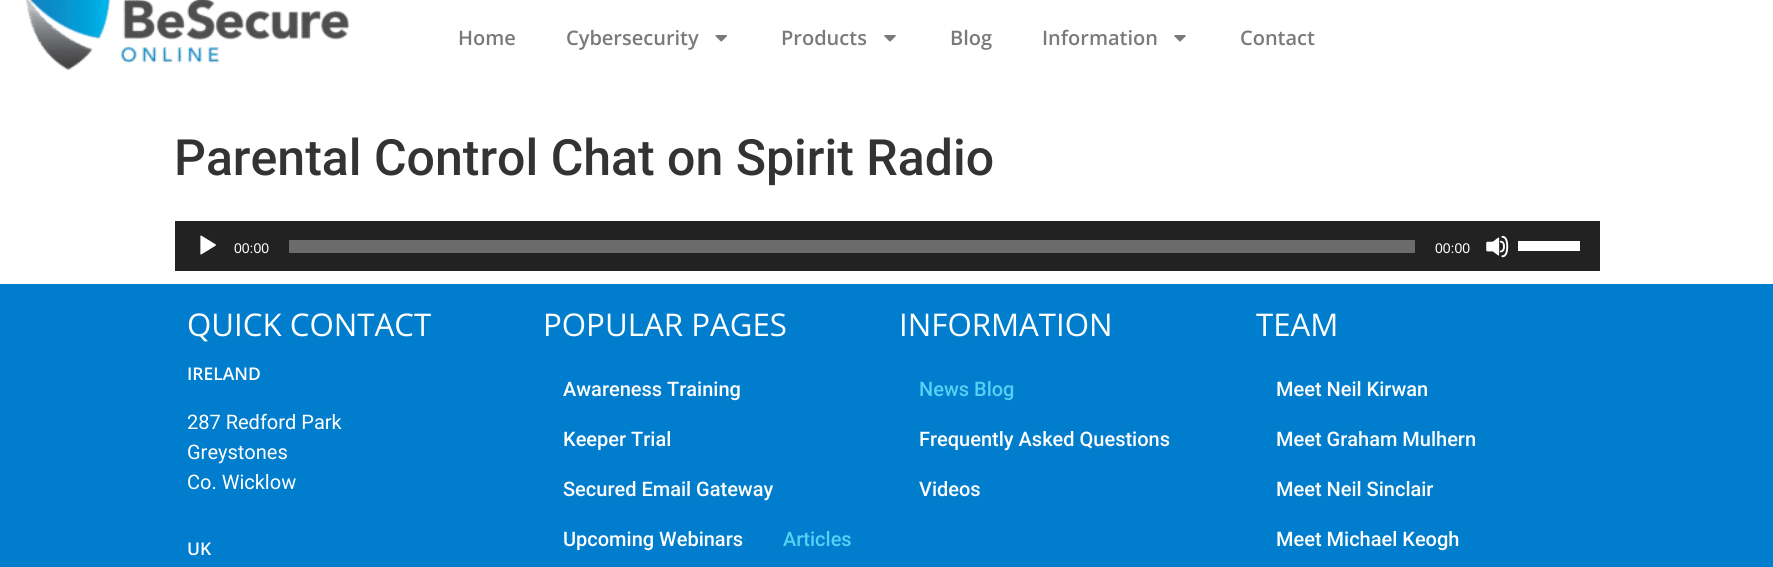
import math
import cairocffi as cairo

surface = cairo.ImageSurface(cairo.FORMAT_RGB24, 1773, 567)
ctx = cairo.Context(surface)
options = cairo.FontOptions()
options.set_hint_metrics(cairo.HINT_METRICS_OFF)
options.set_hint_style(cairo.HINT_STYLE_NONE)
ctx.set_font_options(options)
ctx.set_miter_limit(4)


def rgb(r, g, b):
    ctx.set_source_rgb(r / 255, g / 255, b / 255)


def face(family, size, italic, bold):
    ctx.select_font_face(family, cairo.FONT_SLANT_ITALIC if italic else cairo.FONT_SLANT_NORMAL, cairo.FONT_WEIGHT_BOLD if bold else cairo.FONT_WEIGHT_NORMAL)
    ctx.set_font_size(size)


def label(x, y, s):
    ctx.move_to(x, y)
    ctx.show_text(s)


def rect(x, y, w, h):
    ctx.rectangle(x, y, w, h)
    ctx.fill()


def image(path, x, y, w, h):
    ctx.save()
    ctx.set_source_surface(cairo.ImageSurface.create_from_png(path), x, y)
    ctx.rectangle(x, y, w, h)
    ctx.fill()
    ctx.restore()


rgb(255, 255, 255)
ctx.paint()
image('image0.png', 26, 0, 324, 70)
face('Open Sans SemiBold', 20, 0, 0)
rgb(122, 122, 122)
label(458, 45, 'Home')
label(566, 45, 'Cybersecurity')
image('image1.png', 715, 35, 12, 7)
label(781, 45, 'Products')
image('image2.png', 884, 35, 12, 7)
label(950, 45, 'Blog')
label(1042, 45, 'Information')
image('image2.png', 1174, 35, 12, 7)
label(1240, 45, 'Contact')
face('Roboto Medium', 50, 0, 0)
rgb(51, 51, 51)
label(174, 175, 'Parental Control Chat on Spirit Radio')
rgb(34, 34, 34)
rect(175, 221, 1425, 50)
image('image3.png', 200, 235, 16, 20)
face('Liberation Sans', 14, 0, 0)
rgb(255, 255, 255)
label(234, 253, '00:00')
rgb(107, 107, 107)
rect(289, 240, 1126, 13)
rgb(255, 255, 255)
label(1435, 253, '00:00')
image('image4.png', 1486, 235, 23, 23)
rect(1518, 241, 62, 10)
rgb(0, 125, 205)
rect(0, 284, 1773, 283)
face('Open Sans', 31.25, 0, 0)
rgb(255, 255, 255)
label(187, 336, 'QUICK CONTACT')
face('Open Sans SemiBold', 17.5, 0, 0)
label(187, 380, 'IRELAND')
face('Roboto', 20, 0, 0)
label(187, 429, '287 Redford Park')
label(187, 459, 'Greystones')
label(187, 489, 'Co. Wicklow')
face('Open Sans SemiBold', 17.5, 0, 0)
label(187, 555, 'UK')
face('Open Sans', 31.25, 0, 0)
label(543, 336, 'POPULAR PAGES')
face('Roboto Medium', 20, 0, 0)
label(563, 396, 'Awareness Training')
label(563, 446, 'Keeper Trial')
label(563, 496, 'Secured Email Gateway')
label(563, 546, 'Upcoming Webinars')
rgb(88, 208, 245)
label(783, 546, 'Articles')
face('Open Sans', 31.25, 0, 0)
rgb(255, 255, 255)
label(899, 336, 'INFORMATION')
face('Roboto Medium', 20, 0, 0)
rgb(88, 208, 245)
label(919, 396, 'News Blog')
rgb(255, 255, 255)
label(919, 446, 'Frequently Asked Questions')
label(919, 496, 'Videos')
face('Open Sans', 31.25, 0, 0)
label(1256, 336, 'TEAM')
face('Roboto Medium', 20, 0, 0)
label(1276, 396, 'Meet Neil Kirwan')
label(1276, 446, 'Meet Graham Mulhern')
label(1276, 496, 'Meet Neil Sinclair')
label(1276, 546, 'Meet Michael Keogh')
surface.write_to_png('render.png')
